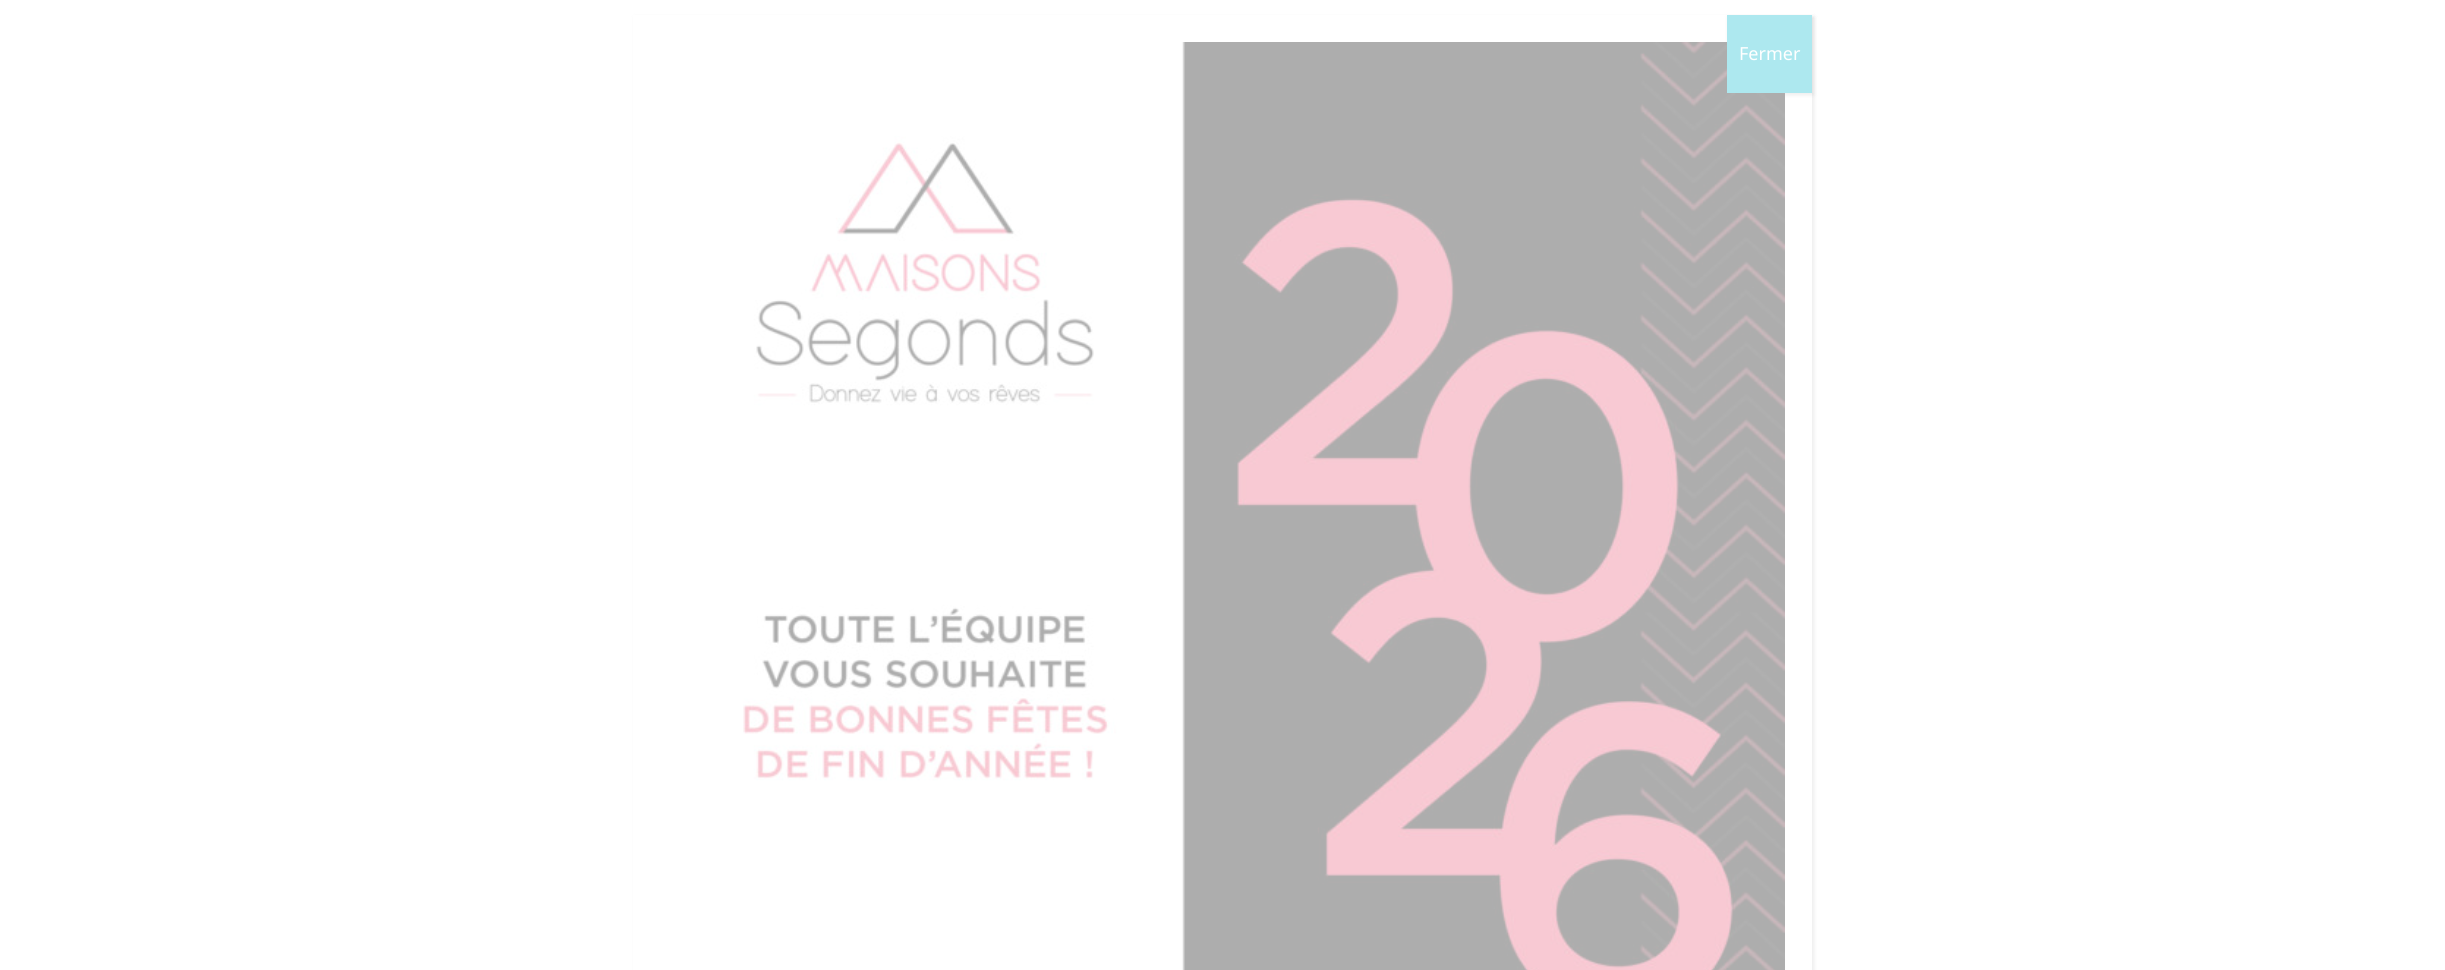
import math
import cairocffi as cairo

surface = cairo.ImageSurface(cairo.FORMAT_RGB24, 2445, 970)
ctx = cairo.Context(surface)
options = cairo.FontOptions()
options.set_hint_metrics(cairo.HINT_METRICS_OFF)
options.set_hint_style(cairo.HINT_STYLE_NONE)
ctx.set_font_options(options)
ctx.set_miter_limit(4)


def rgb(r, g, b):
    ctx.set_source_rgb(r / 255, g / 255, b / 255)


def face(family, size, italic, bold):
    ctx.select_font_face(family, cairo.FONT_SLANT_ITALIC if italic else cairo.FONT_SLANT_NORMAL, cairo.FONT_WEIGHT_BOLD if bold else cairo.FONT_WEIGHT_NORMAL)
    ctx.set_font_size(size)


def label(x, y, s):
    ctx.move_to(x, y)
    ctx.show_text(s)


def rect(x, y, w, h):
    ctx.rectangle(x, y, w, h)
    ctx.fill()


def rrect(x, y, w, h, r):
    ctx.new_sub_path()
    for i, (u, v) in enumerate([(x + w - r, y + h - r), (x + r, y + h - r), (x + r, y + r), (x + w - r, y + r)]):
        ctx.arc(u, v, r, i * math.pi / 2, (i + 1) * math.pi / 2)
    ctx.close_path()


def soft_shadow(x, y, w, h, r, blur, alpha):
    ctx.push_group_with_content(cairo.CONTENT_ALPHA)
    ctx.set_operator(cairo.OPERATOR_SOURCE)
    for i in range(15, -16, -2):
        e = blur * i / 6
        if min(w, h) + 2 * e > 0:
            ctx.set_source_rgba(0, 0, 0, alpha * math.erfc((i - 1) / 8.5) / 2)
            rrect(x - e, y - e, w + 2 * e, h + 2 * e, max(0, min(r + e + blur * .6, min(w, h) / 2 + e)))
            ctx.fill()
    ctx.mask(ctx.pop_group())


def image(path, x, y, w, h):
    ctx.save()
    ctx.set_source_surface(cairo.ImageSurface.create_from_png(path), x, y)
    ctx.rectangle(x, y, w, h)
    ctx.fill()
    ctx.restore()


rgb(255, 255, 255)
ctx.paint()
ctx.save()
ctx.set_fill_rule(cairo.FILL_RULE_EVEN_ODD)
ctx.new_path()
ctx.move_to(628, 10)
ctx.line_to(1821, 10)
ctx.line_to(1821, 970)
ctx.line_to(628, 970)
ctx.close_path()
ctx.move_to(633, 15)
ctx.line_to(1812, 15)
ctx.line_to(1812, 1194)
ctx.line_to(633, 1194)
ctx.close_path()
ctx.clip()
rgb(174, 174, 174)
soft_shadow(635, 17, 1179, 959, 0, 2, 0.23)
ctx.restore()
image('image0.png', 743, 42, 1042, 928)
rgb(174, 174, 174)
soft_shadow(1728, 17, 86, 78, 0, 2, 0.23)
rgb(173, 232, 239)
rect(1727, 15, 85, 78)
face('Noto Sans', 18, 0, 0)
rgb(255, 255, 255)
label(1739, 60, 'Fermer')
surface.write_to_png('render.png')
